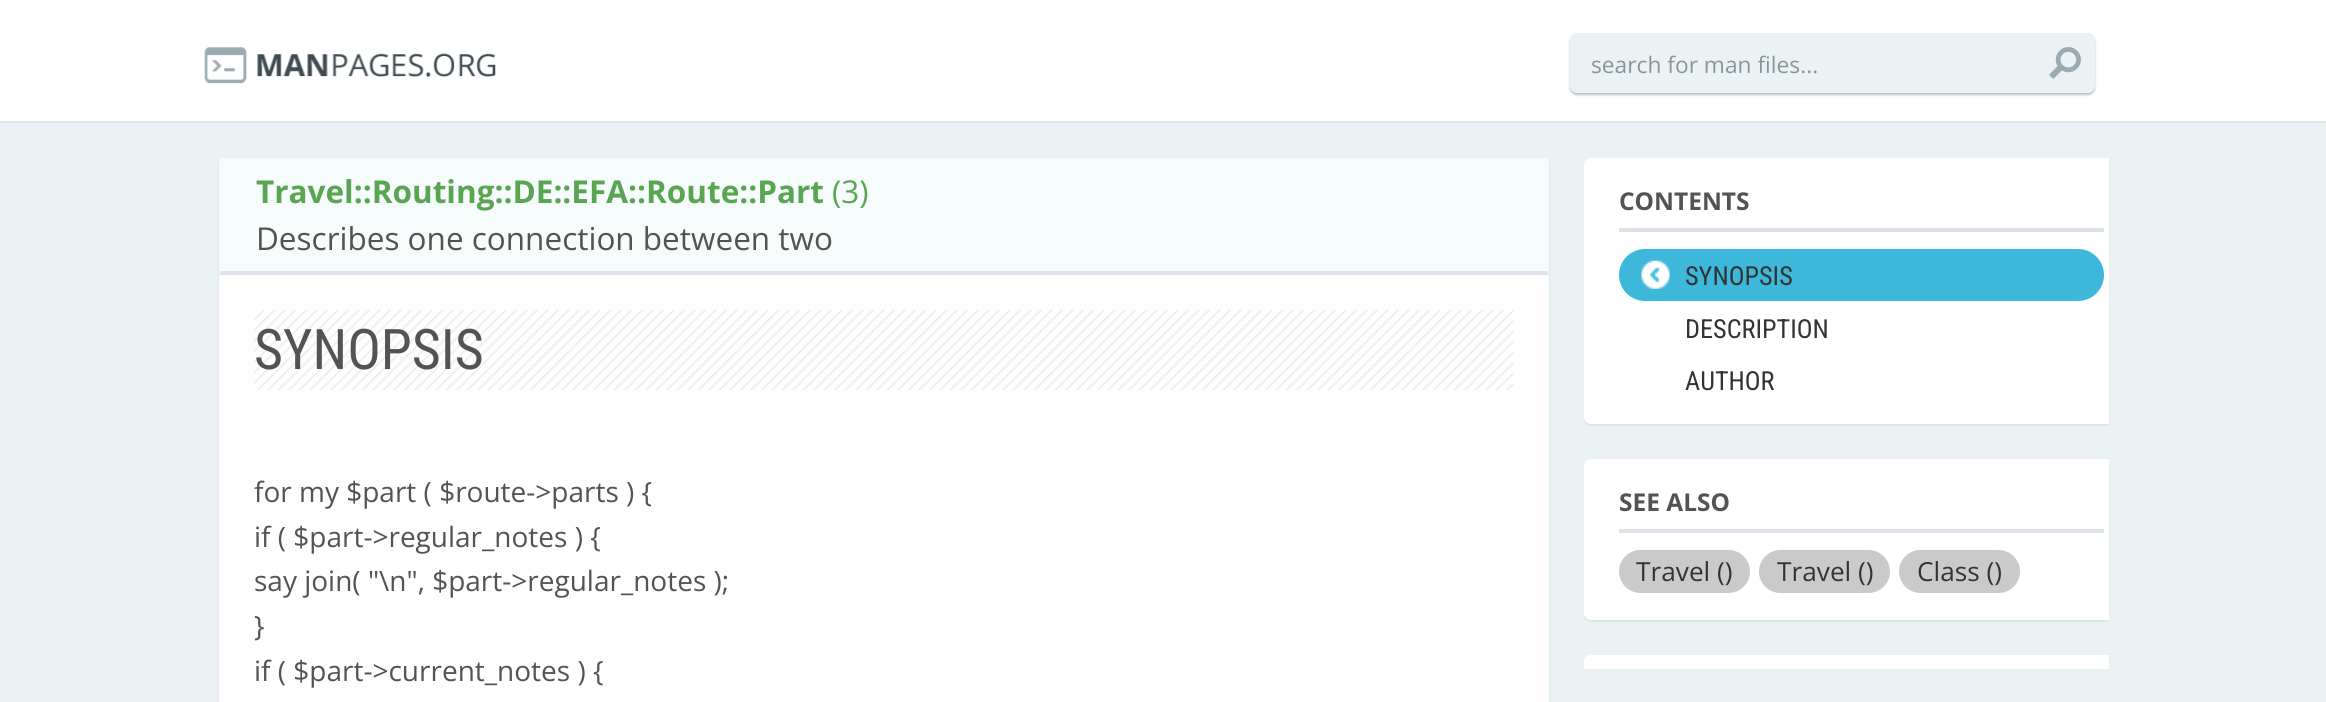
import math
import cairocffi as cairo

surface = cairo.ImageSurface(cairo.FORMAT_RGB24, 2326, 702)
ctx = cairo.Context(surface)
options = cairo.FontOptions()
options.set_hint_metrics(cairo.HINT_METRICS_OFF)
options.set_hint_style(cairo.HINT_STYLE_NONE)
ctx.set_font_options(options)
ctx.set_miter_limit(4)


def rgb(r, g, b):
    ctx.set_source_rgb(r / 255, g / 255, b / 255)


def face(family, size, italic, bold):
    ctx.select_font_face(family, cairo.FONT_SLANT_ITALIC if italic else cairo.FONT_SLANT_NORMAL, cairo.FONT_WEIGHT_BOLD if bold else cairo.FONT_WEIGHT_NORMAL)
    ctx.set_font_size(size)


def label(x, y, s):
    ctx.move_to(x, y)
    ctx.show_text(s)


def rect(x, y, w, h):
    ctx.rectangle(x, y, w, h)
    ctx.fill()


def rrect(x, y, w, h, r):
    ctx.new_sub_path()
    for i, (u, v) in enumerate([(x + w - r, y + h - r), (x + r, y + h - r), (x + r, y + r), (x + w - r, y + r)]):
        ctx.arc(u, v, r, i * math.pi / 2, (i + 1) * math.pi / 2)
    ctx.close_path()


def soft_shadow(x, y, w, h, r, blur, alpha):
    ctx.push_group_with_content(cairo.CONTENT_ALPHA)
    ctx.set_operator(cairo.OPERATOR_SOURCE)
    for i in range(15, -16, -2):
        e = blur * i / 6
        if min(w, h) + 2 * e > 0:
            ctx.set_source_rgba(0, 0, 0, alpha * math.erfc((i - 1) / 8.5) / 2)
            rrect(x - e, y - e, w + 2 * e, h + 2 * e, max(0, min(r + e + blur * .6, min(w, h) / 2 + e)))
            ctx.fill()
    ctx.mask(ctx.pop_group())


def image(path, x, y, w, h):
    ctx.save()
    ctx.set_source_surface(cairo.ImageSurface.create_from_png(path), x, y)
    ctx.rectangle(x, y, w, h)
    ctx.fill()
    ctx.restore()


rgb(234, 242, 244)
ctx.paint()
rgb(255, 255, 255)
rect(0, 0, 2326, 121)
rgb(220, 229, 231)
rect(0, 121, 2326, 2)
image('image0.png', 204, 47, 292, 37)
rgb(6, 47, 55)
soft_shadow(1570, 35, 525, 60, 7, 1, 0.3)
rgb(234, 242, 244)
rrect(1570, 33, 525, 60, 7)
ctx.fill()
face('Open Sans', 22.75, 0, 0)
rgb(134, 150, 157)
label(1591, 73, 'search for man files...')
image('image1.png', 2049, 47, 32, 32)
rgb(0, 0, 0)
soft_shadow(219, 159, 1330, 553, 7, 1, 0.1)
rgb(254, 254, 254)
ctx.new_path()
ctx.move_to(226, 158)
ctx.line_to(1542, 158)
ctx.curve_to(1546, 158, 1549, 161, 1549, 165)
ctx.line_to(1549, 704)
ctx.line_to(219, 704)
ctx.line_to(219, 165)
ctx.curve_to(219, 161, 222, 158, 226, 158)
ctx.close_path()
ctx.fill()
rgb(246, 251, 252)
ctx.new_path()
ctx.move_to(224, 158)
ctx.line_to(1544, 158)
ctx.curve_to(1547, 158, 1549, 160, 1549, 163)
ctx.line_to(1549, 275)
ctx.line_to(219, 275)
ctx.line_to(219, 163)
ctx.curve_to(219, 160, 221, 158, 224, 158)
ctx.close_path()
ctx.fill()
rgb(223, 227, 233)
ctx.new_path()
ctx.move_to(1549, 275)
ctx.line_to(219, 275)
ctx.line_to(221, 271)
ctx.line_to(1547, 271)
ctx.close_path()
ctx.fill()
face('Open Sans', 31.5, 0, 1)
rgb(89, 165, 82)
label(256, 203, 'Travel::Routing::DE::EFA::Route::Part')
face('Open Sans', 31.5, 0, 0)
label(832, 203, '(3)')
rgb(83, 83, 83)
label(256, 250, 'Describes one connection between two')
image('image2.png', 254, 310, 1260, 80)
face('Roboto Condensed', 56, 0, 0)
label(254, 369, 'SYNOPSIS')
face('Open Sans', 28, 0, 0)
label(254, 502, 'for my $part ( $route->parts ) {')
label(254, 547, 'if ( $part->regular_notes ) {')
label(254, 591, 'say join( "\\n", $part->regular_notes );')
label(254, 636, '}')
label(254, 681, 'if ( $part->current_notes ) {')
ctx.save()
ctx.rectangle(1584, 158, 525, 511)
ctx.clip()
rgb(0, 0, 0)
soft_shadow(1584, 159, 555, 266, 7, 1, 0.1)
ctx.restore()
rgb(255, 255, 255)
ctx.new_path()
ctx.move_to(1591, 158)
ctx.line_to(2109, 158)
ctx.line_to(2109, 424)
ctx.line_to(1591, 424)
ctx.curve_to(1587, 424, 1584, 421, 1584, 417)
ctx.line_to(1584, 165)
ctx.curve_to(1584, 161, 1587, 158, 1591, 158)
ctx.close_path()
ctx.fill()
rgb(223, 227, 233)
rect(1619, 228, 485, 4)
face('Open Sans', 24.5, 0, 1)
rgb(83, 83, 83)
label(1619, 210, 'CONTENTS')
rgb(61, 184, 219)
rrect(1619, 249, 485, 52, 26)
ctx.fill()
image('image3.png', 1641, 260, 29, 29)
face('Roboto Condensed', 26.25, 0, 0)
rgb(51, 51, 51)
label(1685, 285, 'SYNOPSIS')
label(1685, 338, 'DESCRIPTION')
label(1685, 390, 'AUTHOR')
ctx.save()
ctx.rectangle(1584, 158, 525, 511)
ctx.clip()
rgb(0, 0, 0)
soft_shadow(1584, 460, 555, 161, 7, 1, 0.1)
ctx.restore()
rgb(255, 255, 255)
ctx.new_path()
ctx.move_to(1591, 459)
ctx.line_to(2109, 459)
ctx.line_to(2109, 620)
ctx.line_to(1591, 620)
ctx.curve_to(1587, 620, 1584, 617, 1584, 613)
ctx.line_to(1584, 466)
ctx.curve_to(1584, 462, 1587, 459, 1591, 459)
ctx.close_path()
ctx.fill()
rgb(223, 227, 233)
rect(1619, 529, 485, 4)
face('Open Sans', 24.5, 0, 1)
rgb(83, 83, 83)
label(1619, 511, 'SEE ALSO')
rgb(202, 202, 202)
rrect(1619, 550, 131, 43, 21.5)
ctx.fill()
face('Open Sans', 26.25, 0, 0)
rgb(51, 51, 51)
label(1636, 581, 'Travel ()')
rgb(202, 202, 202)
rrect(1759, 550, 131, 43, 21.5)
ctx.fill()
rgb(51, 51, 51)
label(1777, 581, 'Travel ()')
rgb(202, 202, 202)
rrect(1899, 550, 121, 43, 21.5)
ctx.fill()
rgb(51, 51, 51)
label(1917, 581, 'Class ()')
rgb(255, 255, 255)
ctx.new_path()
ctx.move_to(1591, 655)
ctx.line_to(2109, 655)
ctx.line_to(2109, 669)
ctx.line_to(1584, 669)
ctx.line_to(1584, 662)
ctx.curve_to(1584, 658, 1587, 655, 1591, 655)
ctx.close_path()
ctx.fill()
surface.write_to_png('render.png')
